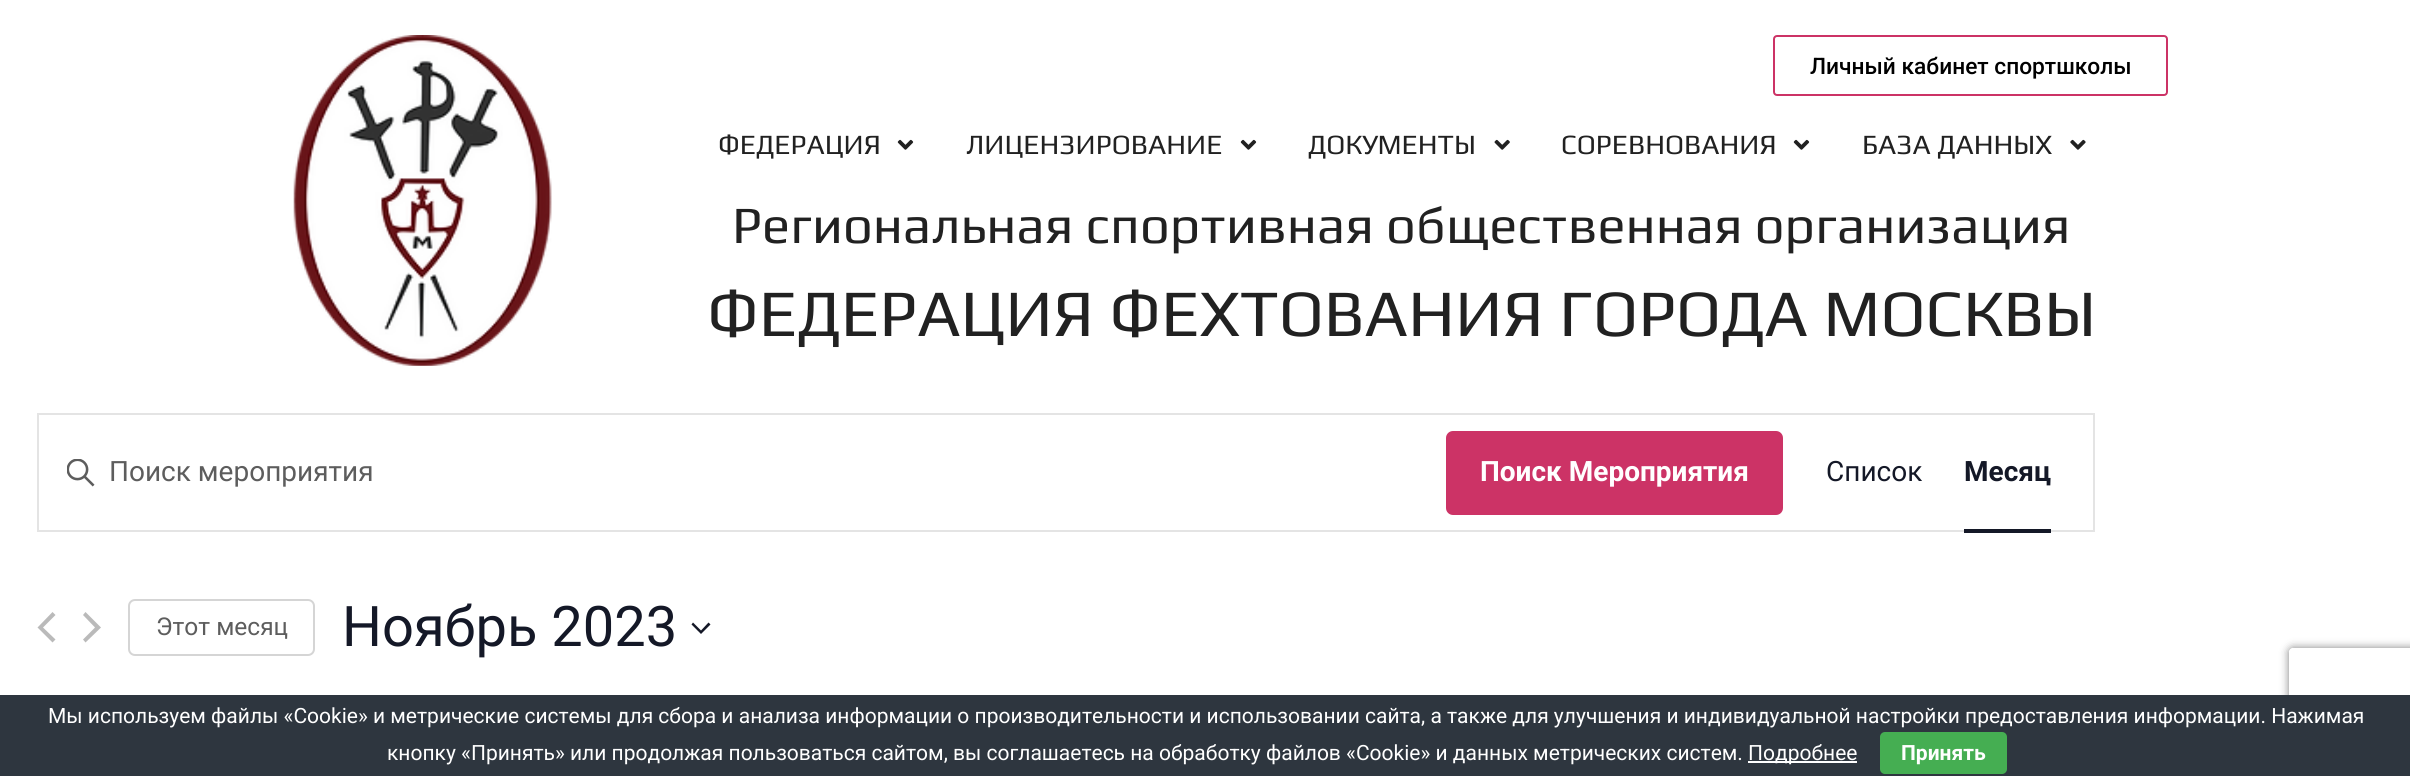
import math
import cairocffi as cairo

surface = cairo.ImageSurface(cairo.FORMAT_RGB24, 2410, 776)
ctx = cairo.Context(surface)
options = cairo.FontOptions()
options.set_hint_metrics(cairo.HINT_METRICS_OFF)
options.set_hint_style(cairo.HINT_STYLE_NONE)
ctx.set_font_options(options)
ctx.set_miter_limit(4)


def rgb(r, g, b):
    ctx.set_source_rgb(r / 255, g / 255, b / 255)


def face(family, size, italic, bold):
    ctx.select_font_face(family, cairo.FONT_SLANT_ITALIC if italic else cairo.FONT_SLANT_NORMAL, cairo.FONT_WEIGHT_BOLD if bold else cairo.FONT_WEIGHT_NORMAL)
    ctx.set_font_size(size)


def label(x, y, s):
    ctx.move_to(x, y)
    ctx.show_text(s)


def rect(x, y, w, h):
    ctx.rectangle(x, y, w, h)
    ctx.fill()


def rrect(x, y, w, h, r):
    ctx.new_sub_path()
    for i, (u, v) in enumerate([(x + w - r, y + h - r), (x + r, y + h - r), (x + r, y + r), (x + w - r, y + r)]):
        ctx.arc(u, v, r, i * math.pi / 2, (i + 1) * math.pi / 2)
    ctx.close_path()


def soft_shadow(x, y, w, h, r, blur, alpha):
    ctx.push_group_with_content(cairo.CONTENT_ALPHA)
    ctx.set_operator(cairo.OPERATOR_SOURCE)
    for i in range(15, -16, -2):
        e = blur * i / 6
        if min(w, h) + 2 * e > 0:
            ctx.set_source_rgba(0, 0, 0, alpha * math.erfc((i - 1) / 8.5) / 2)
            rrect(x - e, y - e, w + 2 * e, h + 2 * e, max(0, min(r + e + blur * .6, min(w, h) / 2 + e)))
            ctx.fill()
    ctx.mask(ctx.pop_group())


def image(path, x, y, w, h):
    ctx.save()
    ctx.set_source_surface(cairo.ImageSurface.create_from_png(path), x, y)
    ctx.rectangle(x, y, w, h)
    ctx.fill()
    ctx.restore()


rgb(255, 255, 255)
ctx.paint()
image('image0.png', 293, 35, 259, 331)
rrect(1774, 36, 393, 59, 3)
rgb(204, 51, 102)
ctx.stroke()
face('Roboto Medium', 22.75, 0, 0)
rgb(0, 0, 0)
label(1810, 74, 'Личный кабинет спортшколы')
face('Play', 28, 0, 0)
rgb(33, 33, 33)
label(718, 154, 'ФЕДЕРАЦИЯ')
image('image1.png', 897, 139, 17, 11)
label(966, 154, 'ЛИЦЕНЗИРОВАНИЕ')
image('image1.png', 1240, 139, 17, 11)
label(1308, 154, 'ДОКУМЕНТЫ')
image('image2.png', 1494, 139, 16, 11)
label(1561, 154, 'СОРЕВНОВАНИЯ')
image('image1.png', 1793, 139, 17, 11)
label(1862, 154, 'БАЗА ДАННЫХ')
image('image3.png', 2070, 139, 16, 11)
face('Play', 52.5, 0, 0)
label(732, 243, 'Региональная спортивная общественная организация')
face('Play', 66.5, 0, 0)
label(707, 336, 'ФЕДЕРАЦИЯ ФЕХТОВАНИЯ ГОРОДА МОСКВЫ')
ctx.rectangle(38, 414, 2056, 117)
rgb(228, 228, 228)
ctx.stroke()
image('image4.png', 67, 459, 28, 28)
face('Roboto', 28, 0, 0)
rgb(93, 93, 93)
label(109, 481, 'Поиск мероприятия')
rgb(204, 51, 102)
rrect(1446, 431, 337, 84, 7)
ctx.fill()
face('Roboto', 28, 0, 1)
rgb(255, 255, 255)
label(1480, 481, 'Поиск Мероприятия')
face('Roboto', 28, 0, 0)
rgb(20, 24, 39)
label(1826, 481, 'Список')
face('Roboto', 28, 0, 1)
label(1964, 481, 'Месяц')
rect(1964, 529, 87, 4)
rgb(186, 186, 186)
ctx.new_path()
ctx.move_to(55.5, 639.5)
ctx.line_to(52.5, 642.5)
ctx.line_to(37.5, 627.5)
ctx.line_to(52.5, 612)
ctx.line_to(55.5, 615)
ctx.line_to(43, 627.5)
ctx.close_path()
ctx.fill()
ctx.new_path()
ctx.move_to(83, 615)
ctx.line_to(85.5, 612)
ctx.line_to(101, 627.5)
ctx.line_to(85.5, 642.5)
ctx.line_to(83, 639.5)
ctx.line_to(95, 627.5)
ctx.close_path()
ctx.fill()
rrect(129, 600, 185, 55, 6)
rgb(213, 213, 213)
ctx.stroke()
face('Roboto', 24.5, 0, 0)
rgb(93, 93, 93)
label(156, 635, 'Этот месяц')
face('Roboto', 56, 0, 0)
rgb(20, 24, 39)
label(342, 646, 'Ноябрь 2023')
ctx.set_fill_rule(cairo.FILL_RULE_EVEN_ODD)
ctx.new_path()
ctx.move_to(693, 622.5)
ctx.line_to(701, 630.5)
ctx.line_to(708.5, 622.5)
ctx.line_to(710.5, 624.5)
ctx.line_to(701, 634)
ctx.line_to(691.5, 624.5)
ctx.close_path()
ctx.fill()
ctx.save()
ctx.new_path()
ctx.move_to(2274, 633)
ctx.line_to(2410, 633)
ctx.line_to(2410, 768)
ctx.line_to(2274, 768)
ctx.close_path()
ctx.move_to(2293, 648)
ctx.line_to(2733, 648)
ctx.curve_to(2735, 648, 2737, 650, 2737, 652)
ctx.line_to(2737, 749)
ctx.curve_to(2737, 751, 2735, 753, 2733, 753)
ctx.line_to(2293, 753)
ctx.curve_to(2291, 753, 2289, 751, 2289, 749)
ctx.line_to(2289, 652)
ctx.curve_to(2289, 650, 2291, 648, 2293, 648)
ctx.close_path()
ctx.clip()
rgb(128, 128, 128)
soft_shadow(2289, 648, 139, 105, 4, 4.5, 1)
ctx.restore()
rgb(46, 54, 63)
rect(0, 695, 2410, 81)
face('Roboto', 21, 0, 0)
rgb(255, 255, 255)
label(48, 723, 'Мы используем файлы «Cookie» и метрические системы для сбора и анализа информации о производительности и использовании сайта, а также для улучшения и индивидуальной настройки предоставления информации. Нажимая')
label(387, 760, 'кнопку «Принять» или продолжая пользоваться сайтом, вы соглашаетесь на обработку файлов «Cookie» и данных метрических систем.')
rect(1748, 761, 109, 2)
label(1748, 760, 'Подробнее')
rgb(69, 174, 82)
rrect(1880, 732, 127, 42, 5)
ctx.fill()
face('Roboto', 21, 0, 1)
rgb(255, 255, 255)
label(1901, 760, 'Принять')
surface.write_to_png('render.png')
